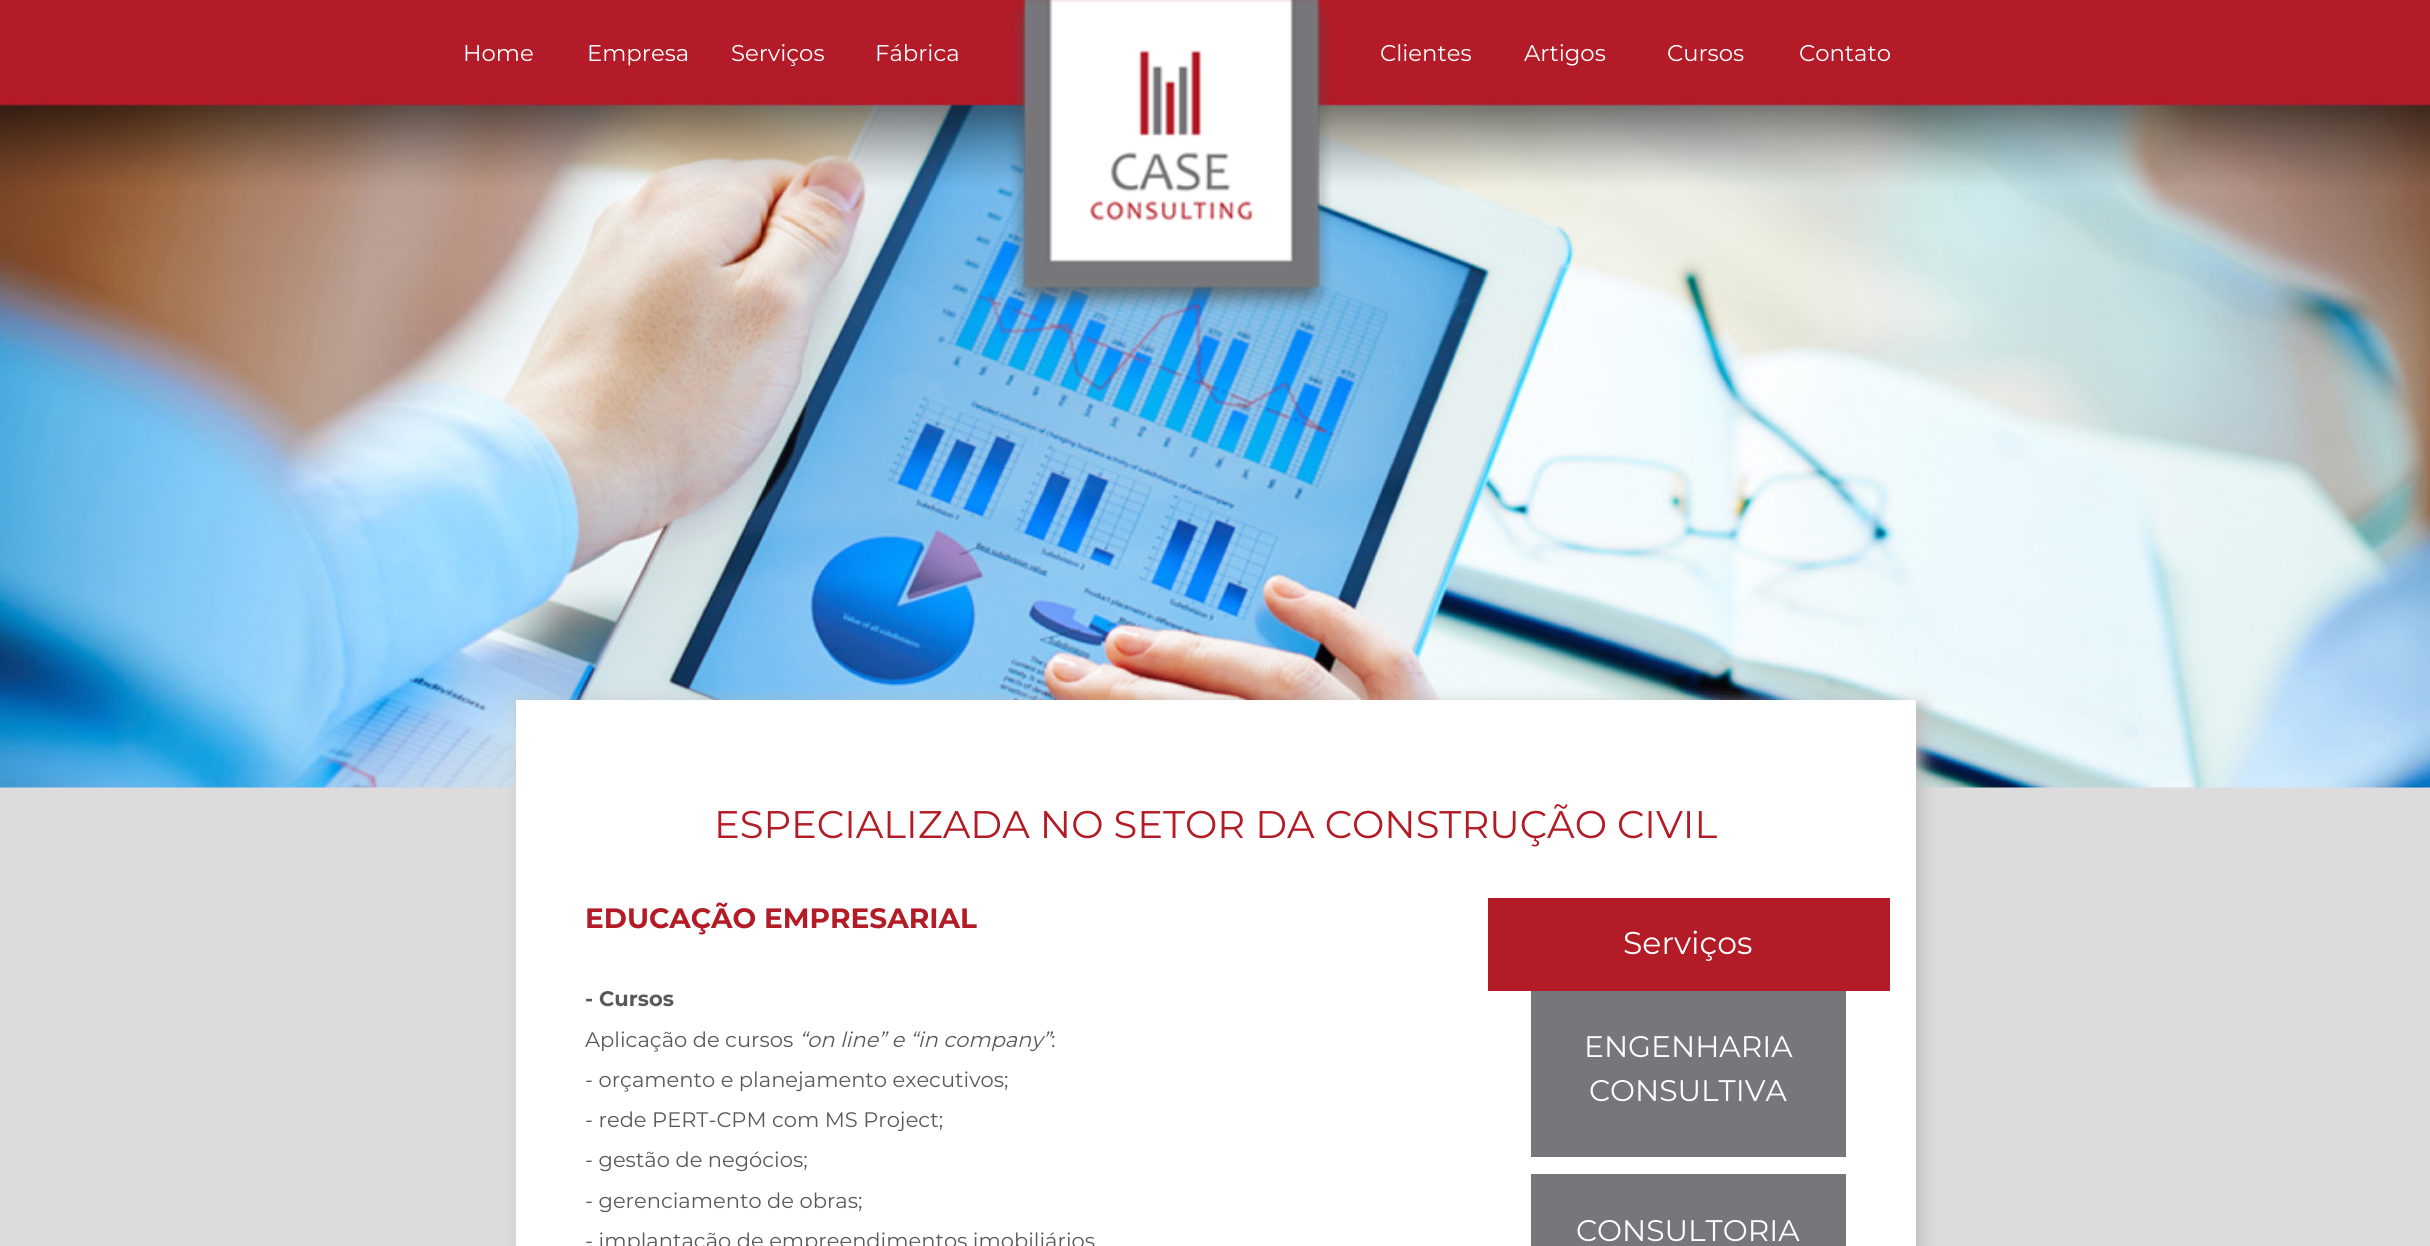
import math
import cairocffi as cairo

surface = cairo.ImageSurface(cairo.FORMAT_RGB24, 2430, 1246)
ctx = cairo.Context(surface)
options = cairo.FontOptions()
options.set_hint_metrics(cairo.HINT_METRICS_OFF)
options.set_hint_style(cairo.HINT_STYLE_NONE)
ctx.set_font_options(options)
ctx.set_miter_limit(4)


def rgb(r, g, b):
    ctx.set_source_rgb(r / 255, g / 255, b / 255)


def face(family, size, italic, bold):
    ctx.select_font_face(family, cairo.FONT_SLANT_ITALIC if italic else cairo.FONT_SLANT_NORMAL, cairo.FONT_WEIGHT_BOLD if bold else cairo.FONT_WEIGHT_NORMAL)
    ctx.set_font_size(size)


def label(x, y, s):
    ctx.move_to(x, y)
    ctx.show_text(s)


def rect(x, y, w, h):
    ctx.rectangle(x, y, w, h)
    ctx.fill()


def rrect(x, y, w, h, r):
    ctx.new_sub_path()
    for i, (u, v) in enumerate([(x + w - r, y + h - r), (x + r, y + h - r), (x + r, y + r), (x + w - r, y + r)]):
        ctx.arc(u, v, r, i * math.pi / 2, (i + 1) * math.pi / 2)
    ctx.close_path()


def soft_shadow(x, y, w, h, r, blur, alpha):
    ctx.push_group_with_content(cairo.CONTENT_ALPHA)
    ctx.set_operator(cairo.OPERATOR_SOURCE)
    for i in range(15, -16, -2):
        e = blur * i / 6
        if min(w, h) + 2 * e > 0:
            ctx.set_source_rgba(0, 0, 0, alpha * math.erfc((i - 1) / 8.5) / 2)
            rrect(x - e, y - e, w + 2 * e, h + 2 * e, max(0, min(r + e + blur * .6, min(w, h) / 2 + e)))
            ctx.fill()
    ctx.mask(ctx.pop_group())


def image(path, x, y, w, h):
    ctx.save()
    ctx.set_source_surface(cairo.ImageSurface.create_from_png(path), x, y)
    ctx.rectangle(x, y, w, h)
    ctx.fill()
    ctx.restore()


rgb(221, 219, 220)
ctx.paint()
image('image0.png', 0, 0, 2430, 788)
face('Montserrat', 22.75, 0, 0)
rgb(255, 255, 255)
label(463, 61, 'Home')
label(587, 61, 'Empresa')
label(731, 61, 'Serviços')
label(875, 61, 'Fábrica')
image('image1.png', 1010, 0, 322, 312)
label(1380, 61, 'Clientes')
label(1524, 61, 'Artigos')
label(1667, 61, 'Cursos')
label(1799, 61, 'Contato')
rgb(191, 189, 190)
soft_shadow(522, 705, 1400, 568, 0, 9, 1)
rgb(255, 255, 255)
rect(516, 700, 1400, 546)
face('Montserrat', 38.5, 0, 0)
rgb(179, 28, 39)
label(714, 838, 'ESPECIALIZADA NO SETOR DA CONSTRUÇÃO CIVIL')
face('Montserrat', 28, 0, 1)
label(585, 928, 'EDUCAÇÃO EMPRESARIAL')
face('Montserrat', 21, 0, 1)
rgb(88, 89, 91)
label(585, 1006, '- Cursos')
face('Montserrat', 21, 0, 0)
label(585, 1047, 'Aplicação de cursos')
face('Montserrat', 21, 1, 0)
label(799, 1047, '“on line” e “in company”')
face('Montserrat', 21, 0, 0)
label(1051, 1047, ':')
label(585, 1087, '- orçamento e planejamento executivos;')
label(585, 1127, '- rede PERT-CPM com MS Project;')
label(585, 1167, '- gestão de negócios;')
label(585, 1208, '- gerenciamento de obras;')
label(585, 1248, '- implantação de empreendimentos imobiliários')
rgb(179, 28, 39)
rect(1488, 898, 402, 93)
face('Montserrat', 31.5, 0, 0)
rgb(255, 255, 255)
label(1623, 954, 'Serviços')
rgb(119, 119, 123)
rect(1531, 991, 315, 166)
face('Montserrat', 29.75, 0, 0)
rgb(255, 255, 255)
label(1584, 1057, 'ENGENHARIA')
label(1589, 1101, 'CONSULTIVA')
rgb(119, 119, 123)
rect(1531, 1174, 315, 72)
rgb(255, 255, 255)
label(1576, 1241, 'CONSULTORIA')
surface.write_to_png('render.png')
